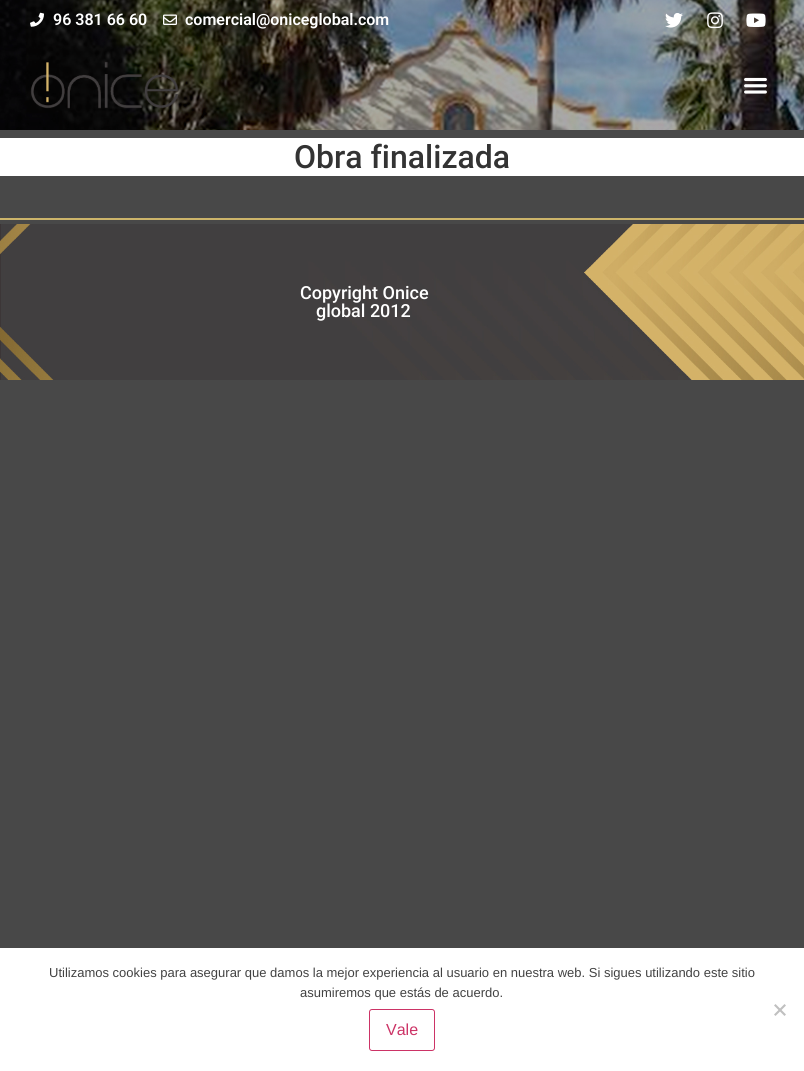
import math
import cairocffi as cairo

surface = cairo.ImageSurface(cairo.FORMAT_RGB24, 804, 1071)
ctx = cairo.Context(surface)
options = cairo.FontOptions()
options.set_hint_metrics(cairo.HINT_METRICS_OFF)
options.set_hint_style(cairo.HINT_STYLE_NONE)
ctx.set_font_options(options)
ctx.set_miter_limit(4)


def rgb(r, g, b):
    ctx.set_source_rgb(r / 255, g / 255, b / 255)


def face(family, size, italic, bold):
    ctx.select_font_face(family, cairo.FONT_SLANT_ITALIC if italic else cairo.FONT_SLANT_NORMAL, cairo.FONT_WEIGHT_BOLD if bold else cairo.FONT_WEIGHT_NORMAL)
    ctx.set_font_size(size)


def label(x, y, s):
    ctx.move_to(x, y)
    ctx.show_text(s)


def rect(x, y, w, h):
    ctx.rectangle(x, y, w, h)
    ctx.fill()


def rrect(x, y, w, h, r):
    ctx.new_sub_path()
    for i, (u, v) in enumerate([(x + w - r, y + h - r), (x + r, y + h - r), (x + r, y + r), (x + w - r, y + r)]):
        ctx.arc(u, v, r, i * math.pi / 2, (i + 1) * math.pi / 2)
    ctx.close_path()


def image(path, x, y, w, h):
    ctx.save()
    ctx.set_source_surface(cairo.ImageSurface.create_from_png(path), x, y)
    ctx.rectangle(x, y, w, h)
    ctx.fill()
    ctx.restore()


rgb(72, 72, 72)
ctx.paint()
image('image0.png', 0, 0, 804, 130)
image('image1.png', 30, 12, 14, 15)
face('Roboto SemiBold', 16, 0, 0)
rgb(255, 255, 255)
label(53, 25, '96 381 66 60')
image('image2.png', 163, 14, 14, 11)
label(185, 25, 'comercial@oniceglobal.com')
image('image3.png', 665, 13, 18, 15)
image('image4.png', 707, 12, 16, 17)
image('image5.png', 746, 13, 20, 14)
image('image6.png', 30, 61, 149, 48)
image('image7.png', 744, 77, 23, 17)
rect(0, 138, 804, 38)
face('Roboto Medium', 32, 0, 0)
rgb(51, 51, 51)
label(294, 168, 'Obra finalizada')
rgb(204, 180, 106)
rect(0, 218, 804, 2)
image('image8.png', 0, 224, 804, 156)
face('Roboto Medium', 18, 0, 0)
rgb(255, 255, 255)
label(300, 299, 'Copyright Onice')
label(316, 317, 'global 2012')
rect(0, 948, 804, 123)
face('Liberation Sans', 13, 0, 0)
rgb(66, 66, 66)
label(49, 977, 'Utilizamos cookies para asegurar que damos la mejor experiencia al usuario en nuestra web. Si sigues utilizando este sitio')
label(300, 997, 'asumiremos que estás de acuerdo.')
rgb(192, 192, 192)
ctx.new_path()
ctx.move_to(784.5, 1004)
ctx.line_to(786, 1005.5)
ctx.line_to(775.5, 1016)
ctx.line_to(774, 1014.5)
ctx.close_path()
ctx.fill()
ctx.new_path()
ctx.move_to(774, 1005.5)
ctx.line_to(775.5, 1004)
ctx.line_to(786, 1014.5)
ctx.line_to(784.5, 1016)
ctx.close_path()
ctx.fill()
rrect(369.5, 1009.5, 65, 41, 2.5)
rgb(204, 51, 102)
ctx.set_line_width(1)
ctx.stroke()
face('Liberation Sans', 16, 0, 0)
label(386, 1035, 'Vale')
surface.write_to_png('render.png')
